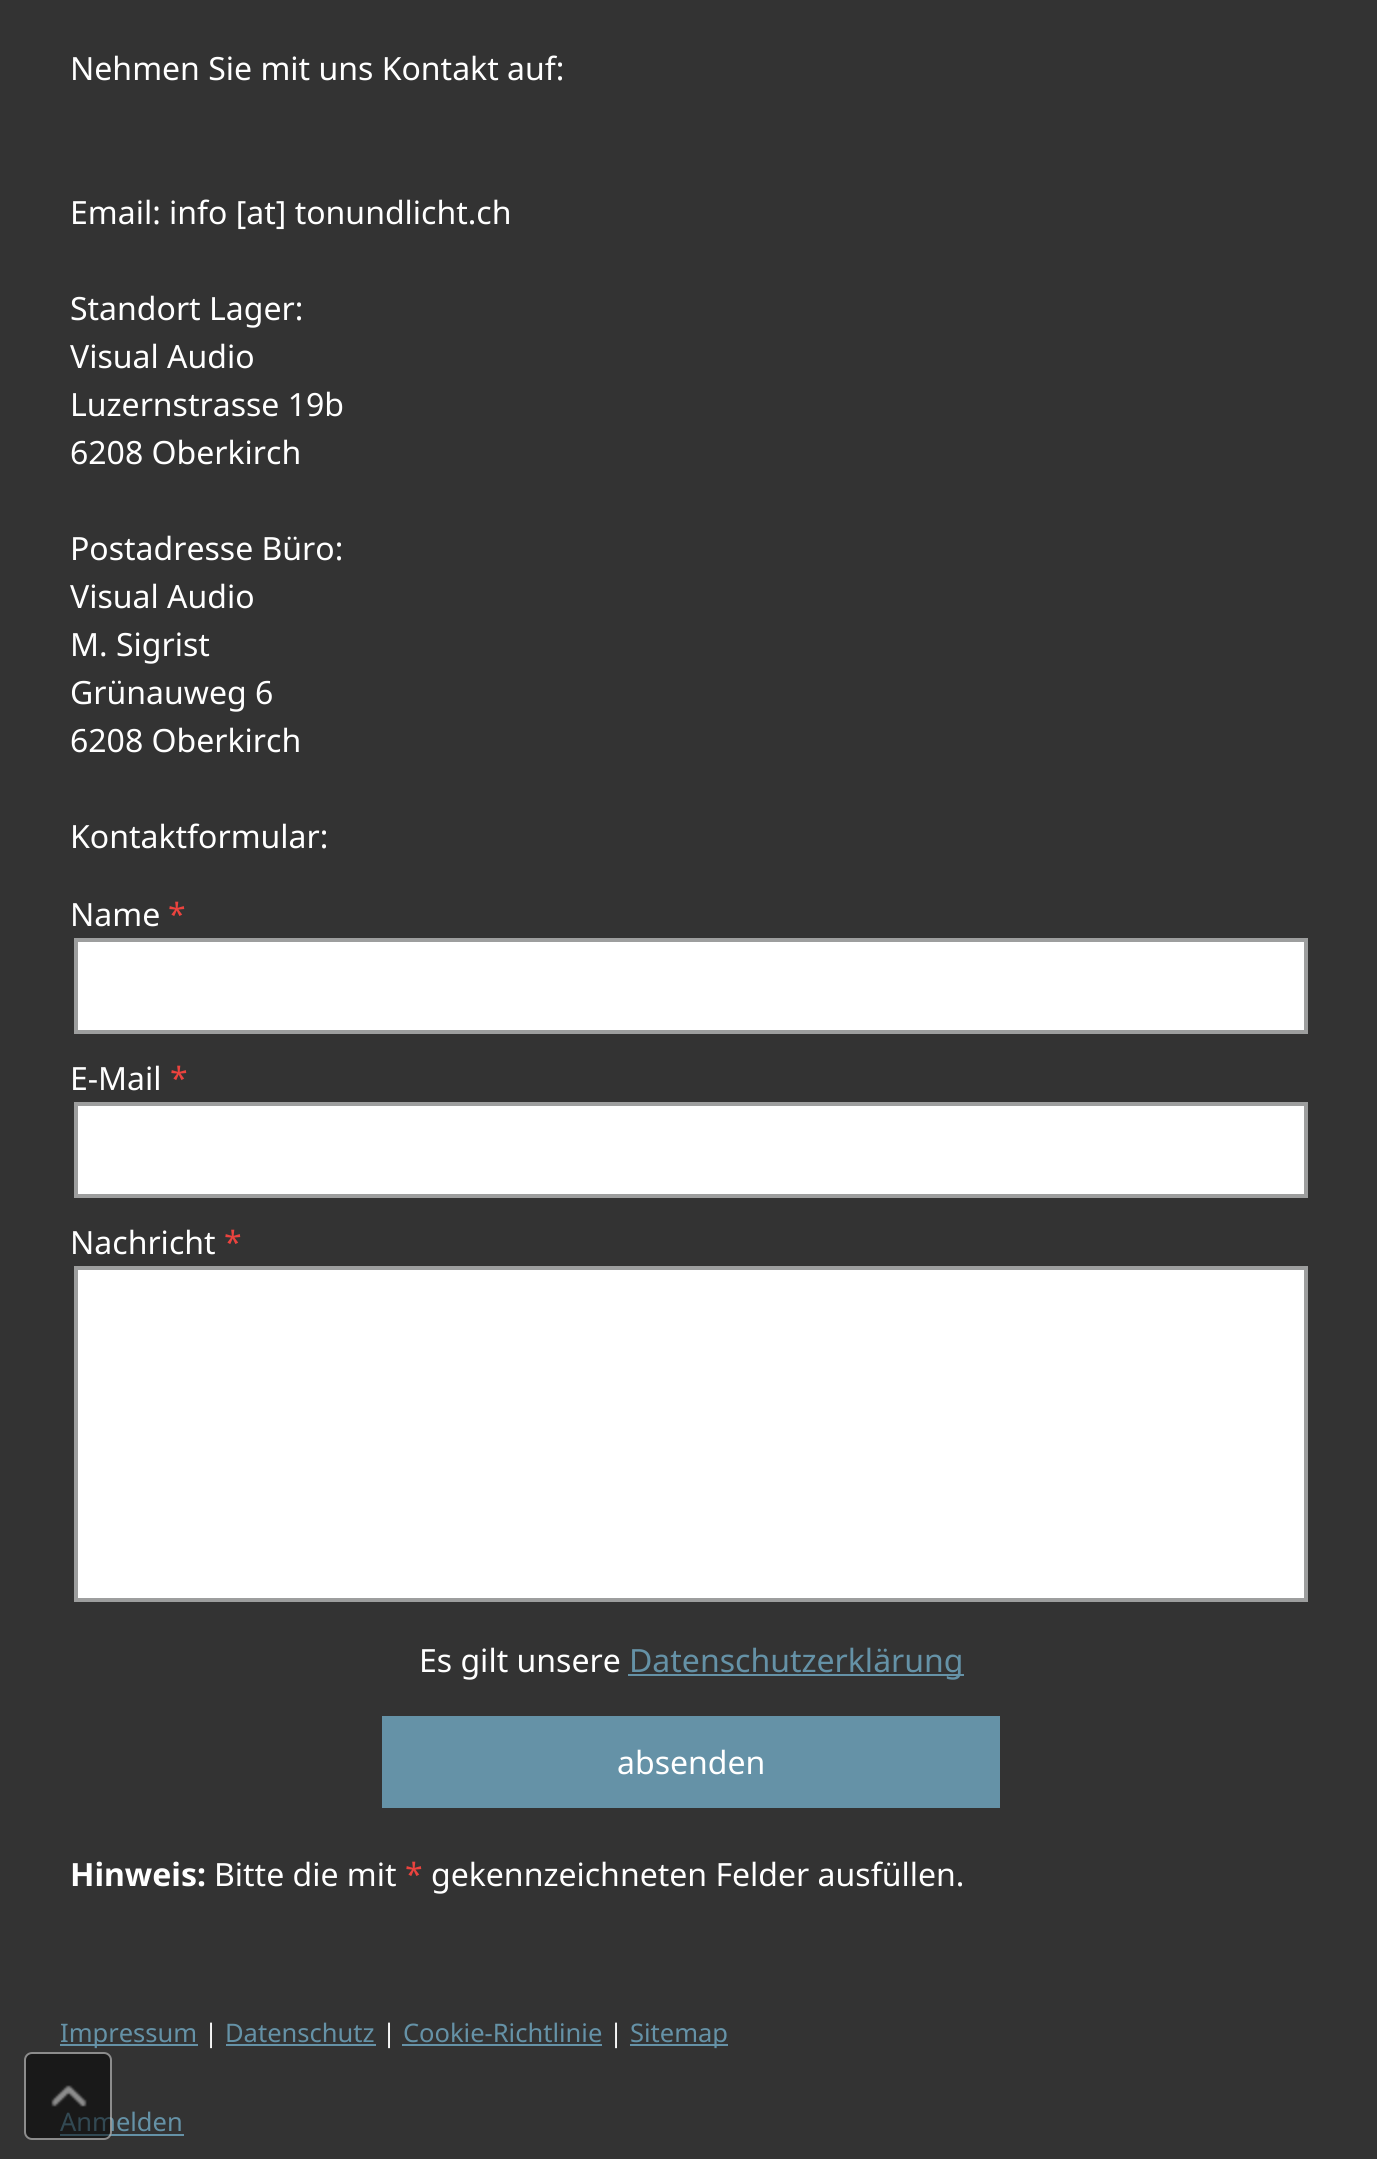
import math
import cairocffi as cairo

surface = cairo.ImageSurface(cairo.FORMAT_RGB24, 1377, 2159)
ctx = cairo.Context(surface)
options = cairo.FontOptions()
options.set_hint_metrics(cairo.HINT_METRICS_OFF)
options.set_hint_style(cairo.HINT_STYLE_NONE)
ctx.set_font_options(options)
ctx.set_miter_limit(4)


def rgb(r, g, b):
    ctx.set_source_rgb(r / 255, g / 255, b / 255)


def face(family, size, italic, bold):
    ctx.select_font_face(family, cairo.FONT_SLANT_ITALIC if italic else cairo.FONT_SLANT_NORMAL, cairo.FONT_WEIGHT_BOLD if bold else cairo.FONT_WEIGHT_NORMAL)
    ctx.set_font_size(size)


def label(x, y, s):
    ctx.move_to(x, y)
    ctx.show_text(s)


def rect(x, y, w, h):
    ctx.rectangle(x, y, w, h)
    ctx.fill()


def rrect(x, y, w, h, r):
    ctx.new_sub_path()
    for i, (u, v) in enumerate([(x + w - r, y + h - r), (x + r, y + h - r), (x + r, y + r), (x + w - r, y + r)]):
        ctx.arc(u, v, r, i * math.pi / 2, (i + 1) * math.pi / 2)
    ctx.close_path()


def image(path, x, y, w, h):
    ctx.save()
    ctx.set_source_surface(cairo.ImageSurface.create_from_png(path), x, y)
    ctx.rectangle(x, y, w, h)
    ctx.fill()
    ctx.restore()


rgb(51, 51, 51)
ctx.paint()
face('Noto Sans', 32, 0, 0)
rgb(255, 255, 255)
label(70, 80, 'Nehmen Sie mit uns Kontakt auf:')
label(70, 224, 'Email: info [at] tonundlicht.ch')
label(70, 320, 'Standort Lager:')
label(70, 368, 'Visual Audio')
label(70, 416, 'Luzernstrasse 19b')
label(70, 464, '6208 Oberkirch')
label(70, 560, 'Postadresse Büro:')
label(70, 608, 'Visual Audio')
label(70, 656, 'M. Sigrist')
label(70, 704, 'Grünauweg 6')
label(70, 752, '6208 Oberkirch')
label(70, 848, 'Kontaktformular:')
label(70, 926, 'Name')
rgb(235, 67, 62)
label(168, 926, '*')
rgb(255, 255, 255)
ctx.rectangle(76, 940, 1230, 92)
ctx.fill_preserve()
rgb(157, 158, 158)
ctx.set_line_width(4)
ctx.stroke()
rgb(255, 255, 255)
label(70, 1090, 'E-Mail')
rgb(235, 67, 62)
label(170, 1090, '*')
rgb(255, 255, 255)
ctx.rectangle(76, 1104, 1230, 92)
ctx.fill_preserve()
rgb(157, 158, 158)
ctx.stroke()
rgb(255, 255, 255)
label(70, 1254, 'Nachricht')
rgb(235, 67, 62)
label(224, 1254, '*')
rgb(255, 255, 255)
ctx.rectangle(76, 1268, 1230, 332)
ctx.fill_preserve()
rgb(157, 158, 158)
ctx.stroke()
rgb(255, 255, 255)
label(419, 1672, 'Es gilt unsere')
rgb(101, 146, 167)
rect(628, 1674, 336, 2)
label(629, 1672, 'Datenschutzerklärung')
rect(382, 1716, 618, 92)
rgb(255, 255, 255)
label(617, 1774, 'absenden')
face('Noto Sans', 32, 0, 1)
label(70, 1886, 'Hinweis:')
face('Noto Sans', 32, 0, 0)
label(214, 1886, 'Bitte die mit')
rgb(235, 67, 62)
label(405, 1886, '*')
rgb(255, 255, 255)
label(431, 1886, 'gekennzeichneten Felder ausfüllen.')
rgb(101, 146, 167)
rect(60, 2044, 138, 2)
face('Noto Sans', 25.5, 0, 0)
label(60, 2042, 'Impressum')
rgb(255, 255, 255)
label(204, 2042, '|')
rgb(101, 146, 167)
label(225, 2042, 'Datenschutz')
rect(226, 2044, 150, 2)
rgb(255, 255, 255)
label(382, 2042, '|')
rgb(101, 146, 167)
label(403, 2042, 'Cookie-Richtlinie')
rect(402, 2044, 200, 2)
rgb(255, 255, 255)
label(609, 2042, '|')
rgb(101, 146, 167)
rect(630, 2044, 98, 2)
label(630, 2042, 'Sitemap')
label(60, 2131, 'Anmelden')
rect(60, 2134, 124, 2)
ctx.set_source_rgba(0, 0, 0, 0.5)
rrect(24, 2052, 88, 88, 8)
ctx.fill()
rrect(25, 2053, 86, 86, 7)
ctx.set_source_rgba(1, 1, 1, 0.5)
ctx.set_line_width(2)
ctx.stroke()
image('image0.png', 51, 2085, 36, 22)
surface.write_to_png('render.png')
